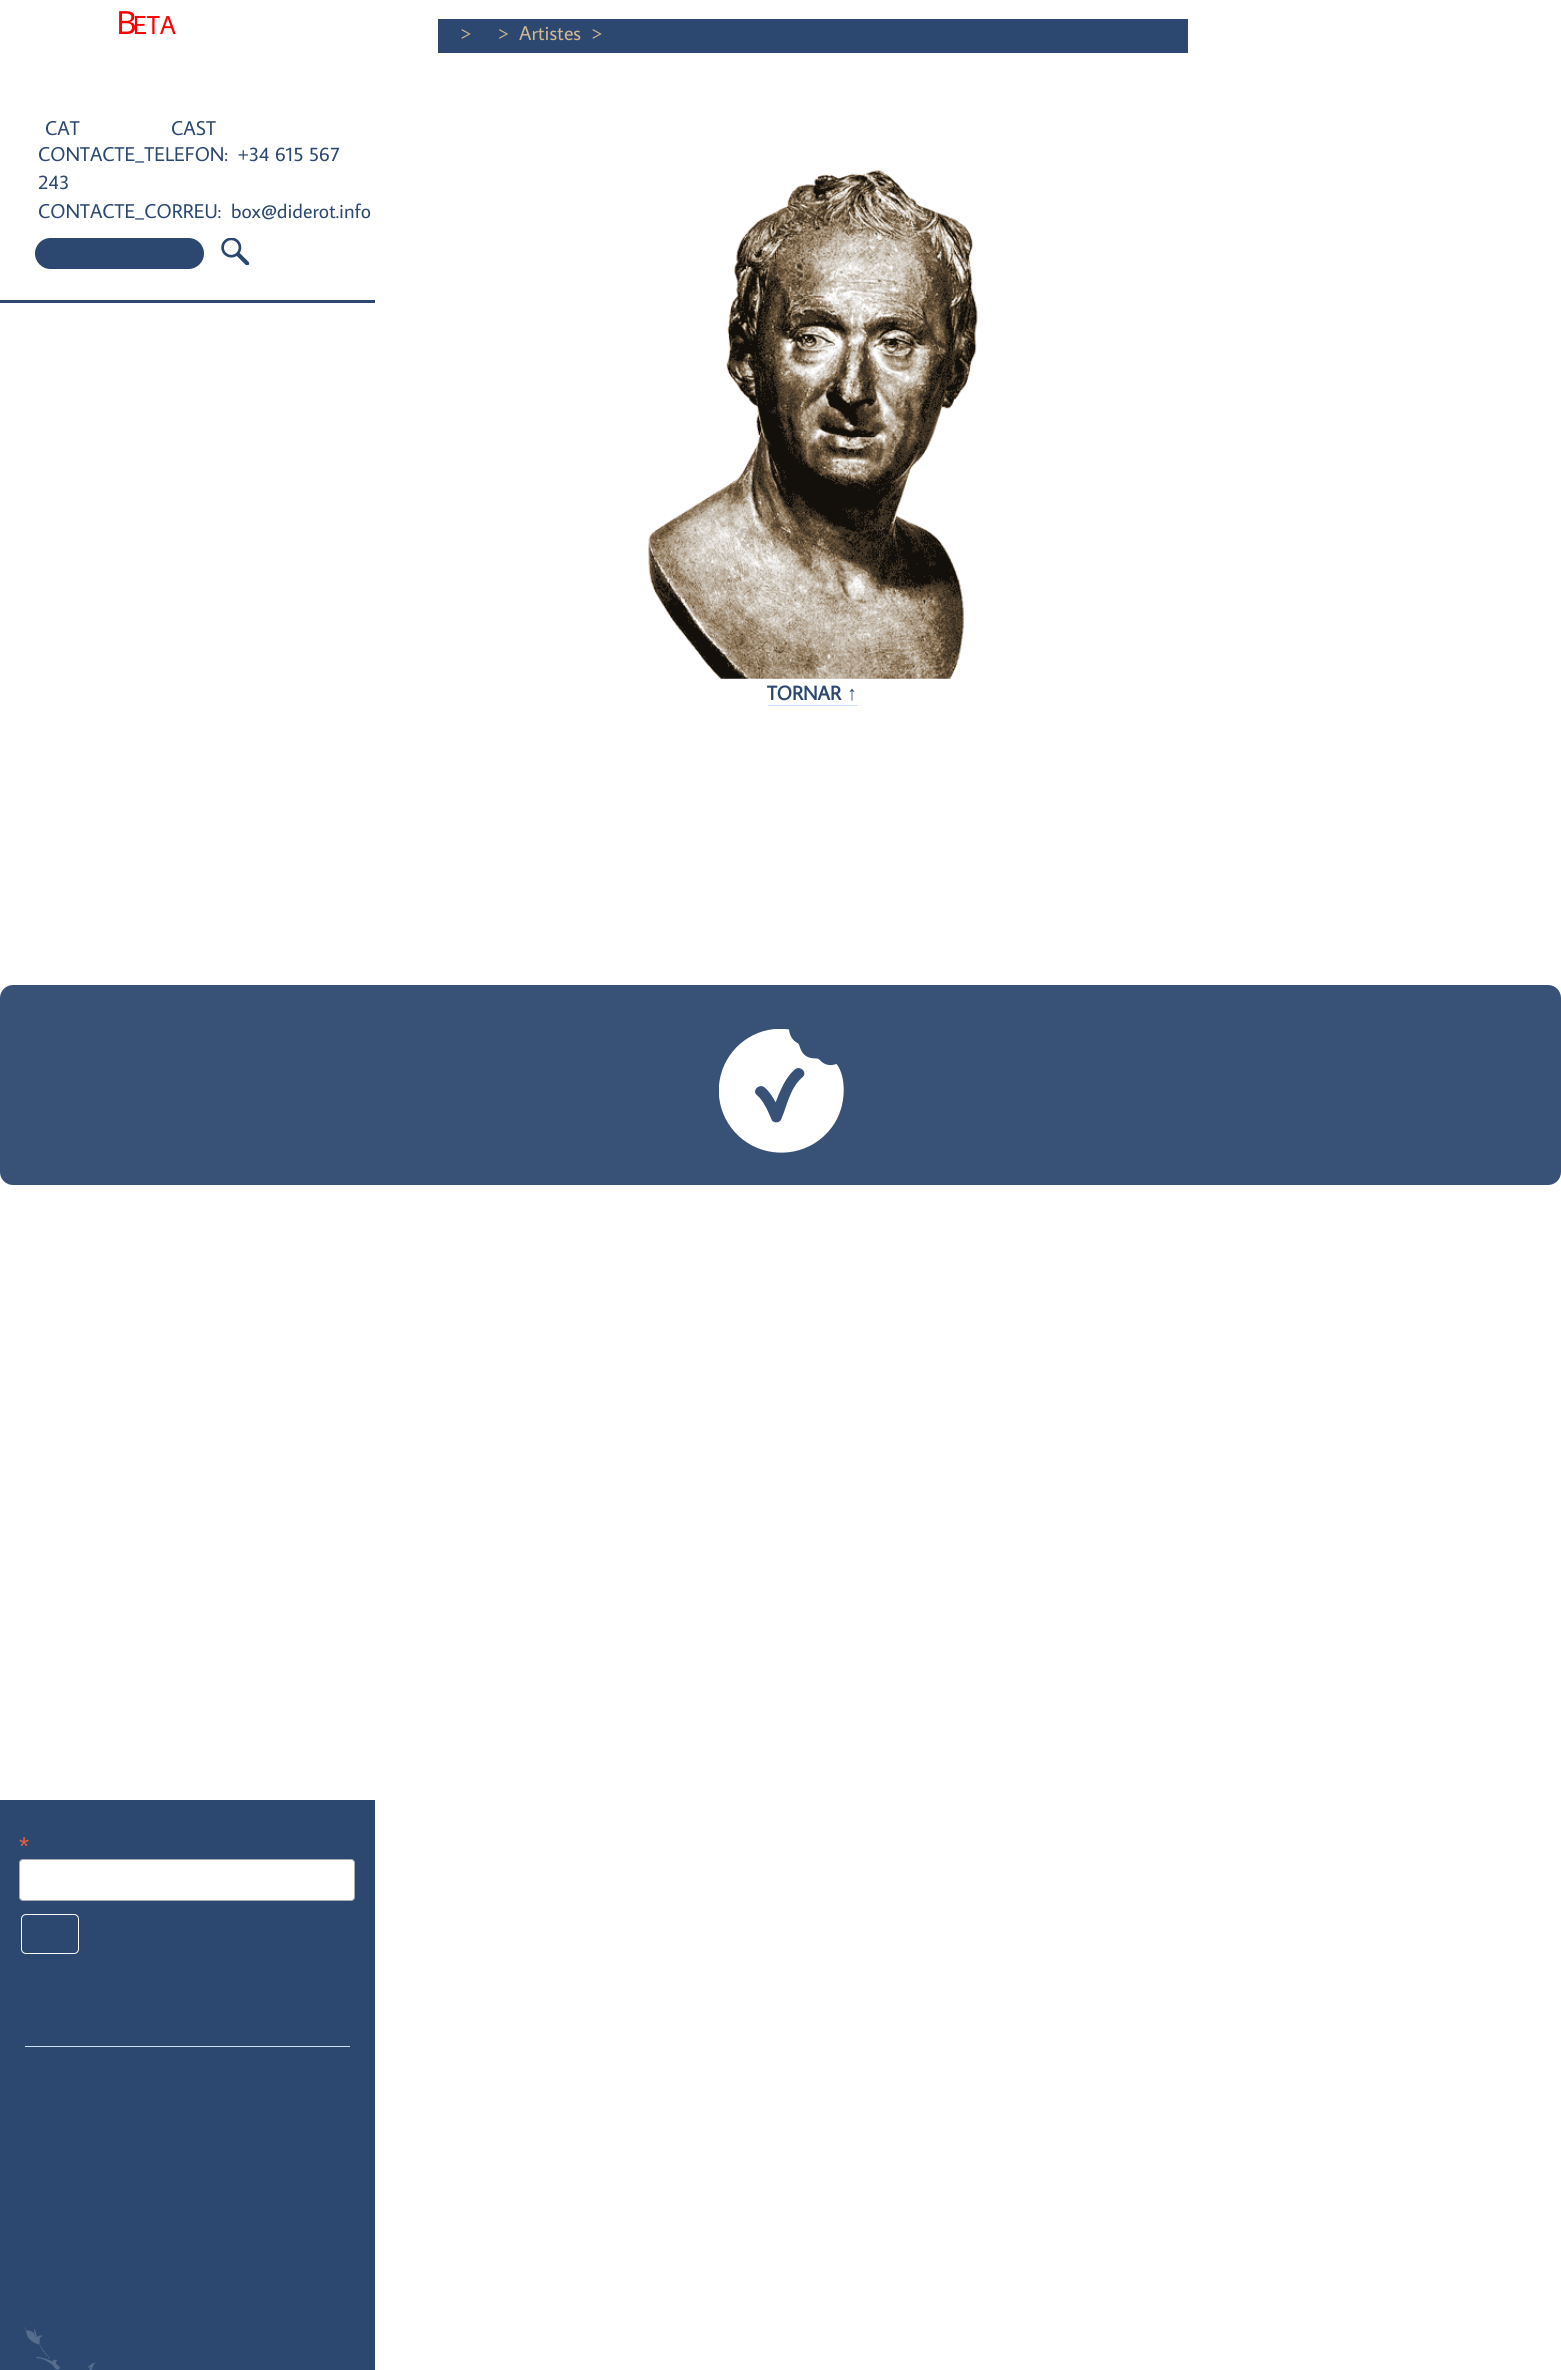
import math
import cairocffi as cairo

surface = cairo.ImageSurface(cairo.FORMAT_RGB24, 1561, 2370)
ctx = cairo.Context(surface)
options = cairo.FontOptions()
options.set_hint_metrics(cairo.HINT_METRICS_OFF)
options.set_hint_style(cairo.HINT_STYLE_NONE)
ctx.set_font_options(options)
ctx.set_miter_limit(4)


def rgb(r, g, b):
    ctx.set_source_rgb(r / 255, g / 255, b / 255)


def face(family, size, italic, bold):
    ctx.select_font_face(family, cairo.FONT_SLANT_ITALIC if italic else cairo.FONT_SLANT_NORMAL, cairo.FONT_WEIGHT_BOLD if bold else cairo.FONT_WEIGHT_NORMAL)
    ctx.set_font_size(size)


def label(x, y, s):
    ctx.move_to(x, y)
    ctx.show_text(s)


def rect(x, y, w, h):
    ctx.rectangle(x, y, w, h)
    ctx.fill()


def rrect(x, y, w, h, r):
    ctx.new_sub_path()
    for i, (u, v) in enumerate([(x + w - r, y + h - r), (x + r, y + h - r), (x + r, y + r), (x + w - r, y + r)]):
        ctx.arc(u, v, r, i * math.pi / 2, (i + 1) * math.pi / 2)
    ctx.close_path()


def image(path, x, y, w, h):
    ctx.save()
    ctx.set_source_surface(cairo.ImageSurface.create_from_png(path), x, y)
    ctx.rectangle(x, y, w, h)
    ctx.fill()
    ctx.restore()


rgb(255, 255, 255)
ctx.paint()
face('Noto Sans', 32, 0, 0)
rgb(255, 0, 0)
label(116, 34, 'B')
face('Average Sans', 26, 0, 0)
label(133, 34, 'ETA')
face('Average Sans', 20, 0, 0)
rgb(44, 72, 112)
label(45, 135, 'CAT')
label(171, 135, 'CAST')
label(38, 161, 'CONTACTE_TELEFON:')
label(238, 161, '+34 615 567')
label(38, 189, '243')
label(38, 218, 'CONTACTE_CORREU:')
label(231, 218, 'box@diderot.info')
rrect(35, 238, 169, 31, 15.5)
ctx.fill()
image('image0.png', 221, 238, 29, 27)
rect(438, 19, 750, 34)
rgb(211, 183, 143)
label(461, 40, '>     >')
label(519, 40, 'Artistes')
label(592, 40, '>')
image('image1.png', 648, 170, 330, 509)
face('Average Sans', 20, 0, 1)
rgb(44, 72, 112)
label(767, 700, 'TORNAR')
face('Liberation Sans', 20, 0, 1)
label(847, 700, '↑')
rgb(206, 226, 255)
rect(768, 705, 90, 1)
rgb(44, 72, 112)
rect(0, 300, 375, 3)
rgb(55, 81, 119)
rrect(0, 985, 1561, 200, 13)
ctx.fill()
image('image2.png', 719, 1029, 125, 124)
rgb(44, 72, 112)
rect(0, 1800, 375, 570)
image('image3.png', 24, 2327, 72, 43)
face('Liberation Sans', 26, 0, 0)
rgb(232, 92, 65)
label(19, 1855, '*')
rgb(255, 255, 255)
rrect(19.5, 1859.5, 335, 41, 3.5)
ctx.fill_preserve()
rgb(171, 176, 178)
ctx.set_line_width(1)
ctx.stroke()
rrect(21.5, 1914.5, 57, 39, 4.5)
rgb(255, 255, 255)
ctx.stroke()
rgb(206, 226, 255)
rect(25, 2046, 325, 1)
surface.write_to_png('render.png')
